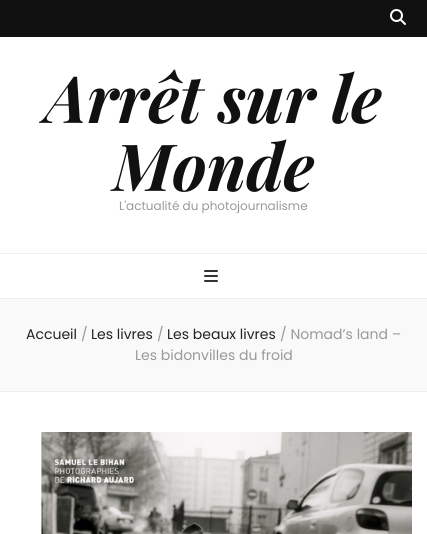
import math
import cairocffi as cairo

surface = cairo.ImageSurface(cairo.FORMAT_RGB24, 427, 534)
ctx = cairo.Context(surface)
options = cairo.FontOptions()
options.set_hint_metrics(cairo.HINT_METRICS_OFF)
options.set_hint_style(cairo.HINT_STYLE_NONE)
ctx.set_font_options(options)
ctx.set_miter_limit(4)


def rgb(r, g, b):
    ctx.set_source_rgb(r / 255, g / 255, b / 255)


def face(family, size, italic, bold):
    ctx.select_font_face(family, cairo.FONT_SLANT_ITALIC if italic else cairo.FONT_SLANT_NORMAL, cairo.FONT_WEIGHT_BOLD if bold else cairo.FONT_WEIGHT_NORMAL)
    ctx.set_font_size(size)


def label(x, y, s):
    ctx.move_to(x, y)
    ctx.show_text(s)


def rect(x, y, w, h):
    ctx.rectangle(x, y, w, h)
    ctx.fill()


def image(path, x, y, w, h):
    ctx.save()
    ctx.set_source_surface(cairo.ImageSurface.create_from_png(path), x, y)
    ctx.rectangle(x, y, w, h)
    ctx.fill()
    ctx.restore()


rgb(255, 255, 255)
ctx.paint()
rgb(17, 17, 17)
rect(0, 0, 427, 37)
image('image0.png', 390, 9, 16, 16)
face('Playfair Display', 65, 1, 1)
label(45, 123, 'Arrêt sur le')
label(113, 191, 'Monde')
face('Poppins', 12, 0, 0)
rgb(153, 153, 153)
label(119, 210, 'L\'actualité du photojournalisme')
rgb(238, 238, 238)
rect(0, 253, 427, 1)
rect(0, 298, 427, 1)
image('image1.png', 204, 270, 14, 12)
rgb(249, 249, 249)
rect(0, 299, 427, 92)
rgb(238, 238, 238)
rect(0, 391, 427, 1)
face('Poppins', 14, 0, 0)
rgb(34, 34, 34)
label(26, 339, 'Accueil')
rgb(153, 153, 153)
label(81, 339, '/')
rgb(34, 34, 34)
label(91, 339, 'Les livres')
rgb(153, 153, 153)
label(157, 339, '/')
rgb(34, 34, 34)
label(167, 339, 'Les beaux livres')
rgb(153, 153, 153)
label(280, 339, '/ Nomad’s land –')
label(135, 360, 'Les bidonvilles du froid')
image('image2.png', 40, 432, 372, 102)
surface.write_to_png('render.png')
